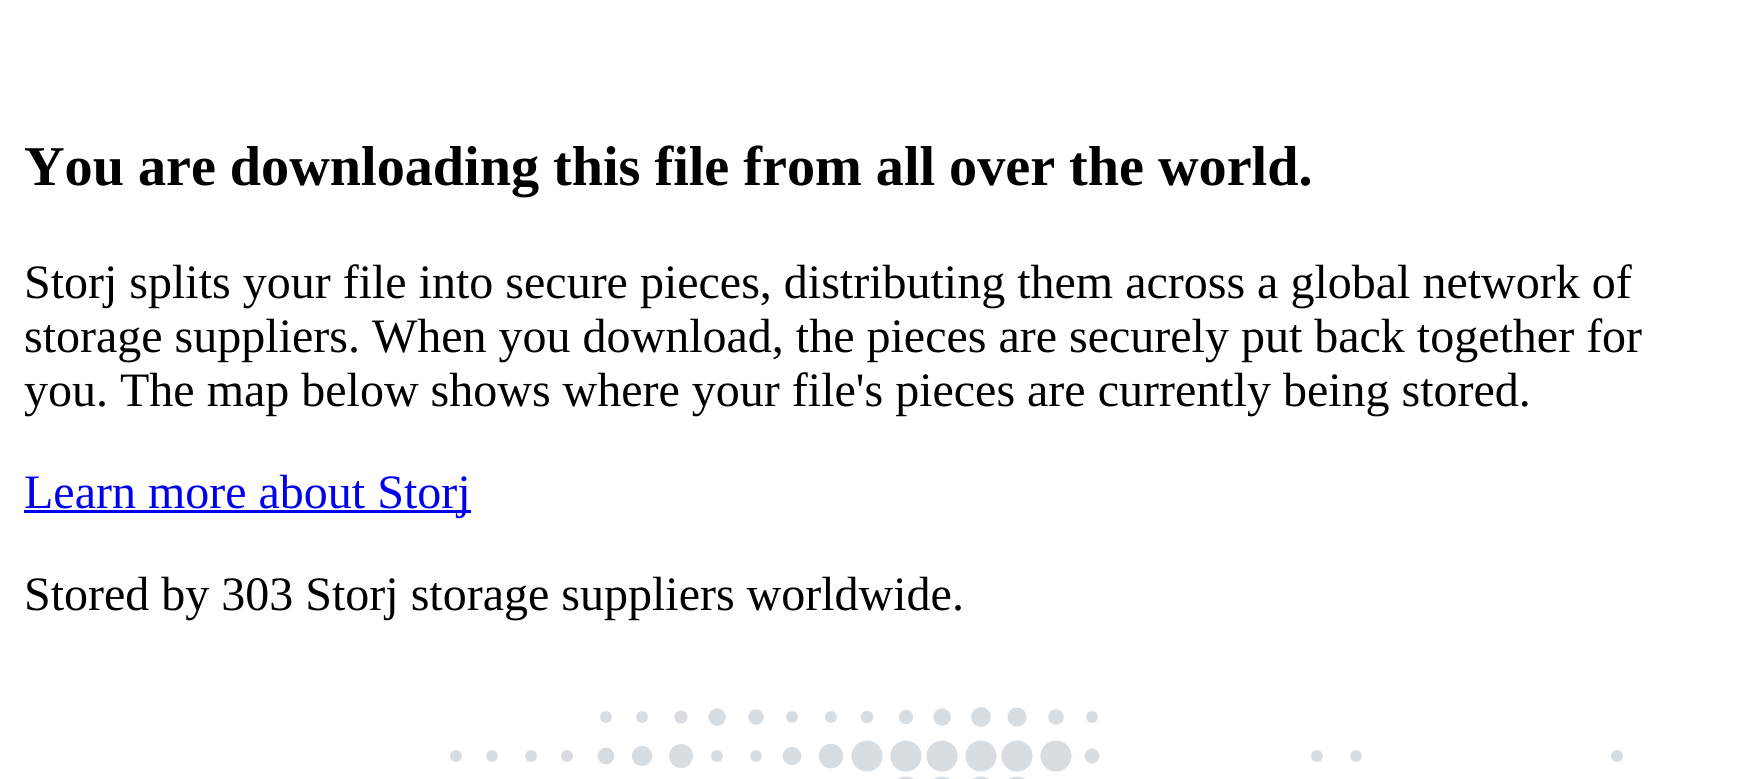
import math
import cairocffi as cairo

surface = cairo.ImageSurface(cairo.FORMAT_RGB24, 1747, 779)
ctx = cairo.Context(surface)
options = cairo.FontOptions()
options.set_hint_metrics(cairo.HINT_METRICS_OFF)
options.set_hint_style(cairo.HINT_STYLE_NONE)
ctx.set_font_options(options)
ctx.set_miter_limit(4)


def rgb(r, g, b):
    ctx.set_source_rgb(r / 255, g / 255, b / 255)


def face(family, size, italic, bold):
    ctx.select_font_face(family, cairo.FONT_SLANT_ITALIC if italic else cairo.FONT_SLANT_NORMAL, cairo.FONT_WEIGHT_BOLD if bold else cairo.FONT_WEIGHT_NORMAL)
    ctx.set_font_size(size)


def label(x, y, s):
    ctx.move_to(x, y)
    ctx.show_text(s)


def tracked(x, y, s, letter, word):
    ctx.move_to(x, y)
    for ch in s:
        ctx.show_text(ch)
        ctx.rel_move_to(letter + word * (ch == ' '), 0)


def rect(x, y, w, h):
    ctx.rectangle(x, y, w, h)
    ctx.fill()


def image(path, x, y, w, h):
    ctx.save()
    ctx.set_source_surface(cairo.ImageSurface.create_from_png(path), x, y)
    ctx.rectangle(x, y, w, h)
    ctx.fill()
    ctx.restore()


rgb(255, 255, 255)
ctx.paint()
face('Liberation Serif', 56.2, 0, 1)
rgb(0, 0, 0)
tracked(24, 185, 'You are downloading this file from all over the world.', 0, -0.1)
face('Liberation Serif', 48, 0, 0)
label(24, 298, 'Storj splits your file into secure pieces, distributing them across a global network of')
label(24, 352, 'storage suppliers. When you download, the pieces are securely put back together for')
label(24, 406, 'you. The map below shows where your file\'s pieces are currently being stored.')
rgb(0, 0, 238)
rect(24, 510, 447, 3)
label(24, 508, 'Learn more about Storj')
rgb(0, 0, 0)
label(24, 610, 'Stored by 303 Storj storage suppliers worldwide.')
image('image0.png', 450, 707, 1173, 72)
surface.write_to_png('render.png')
